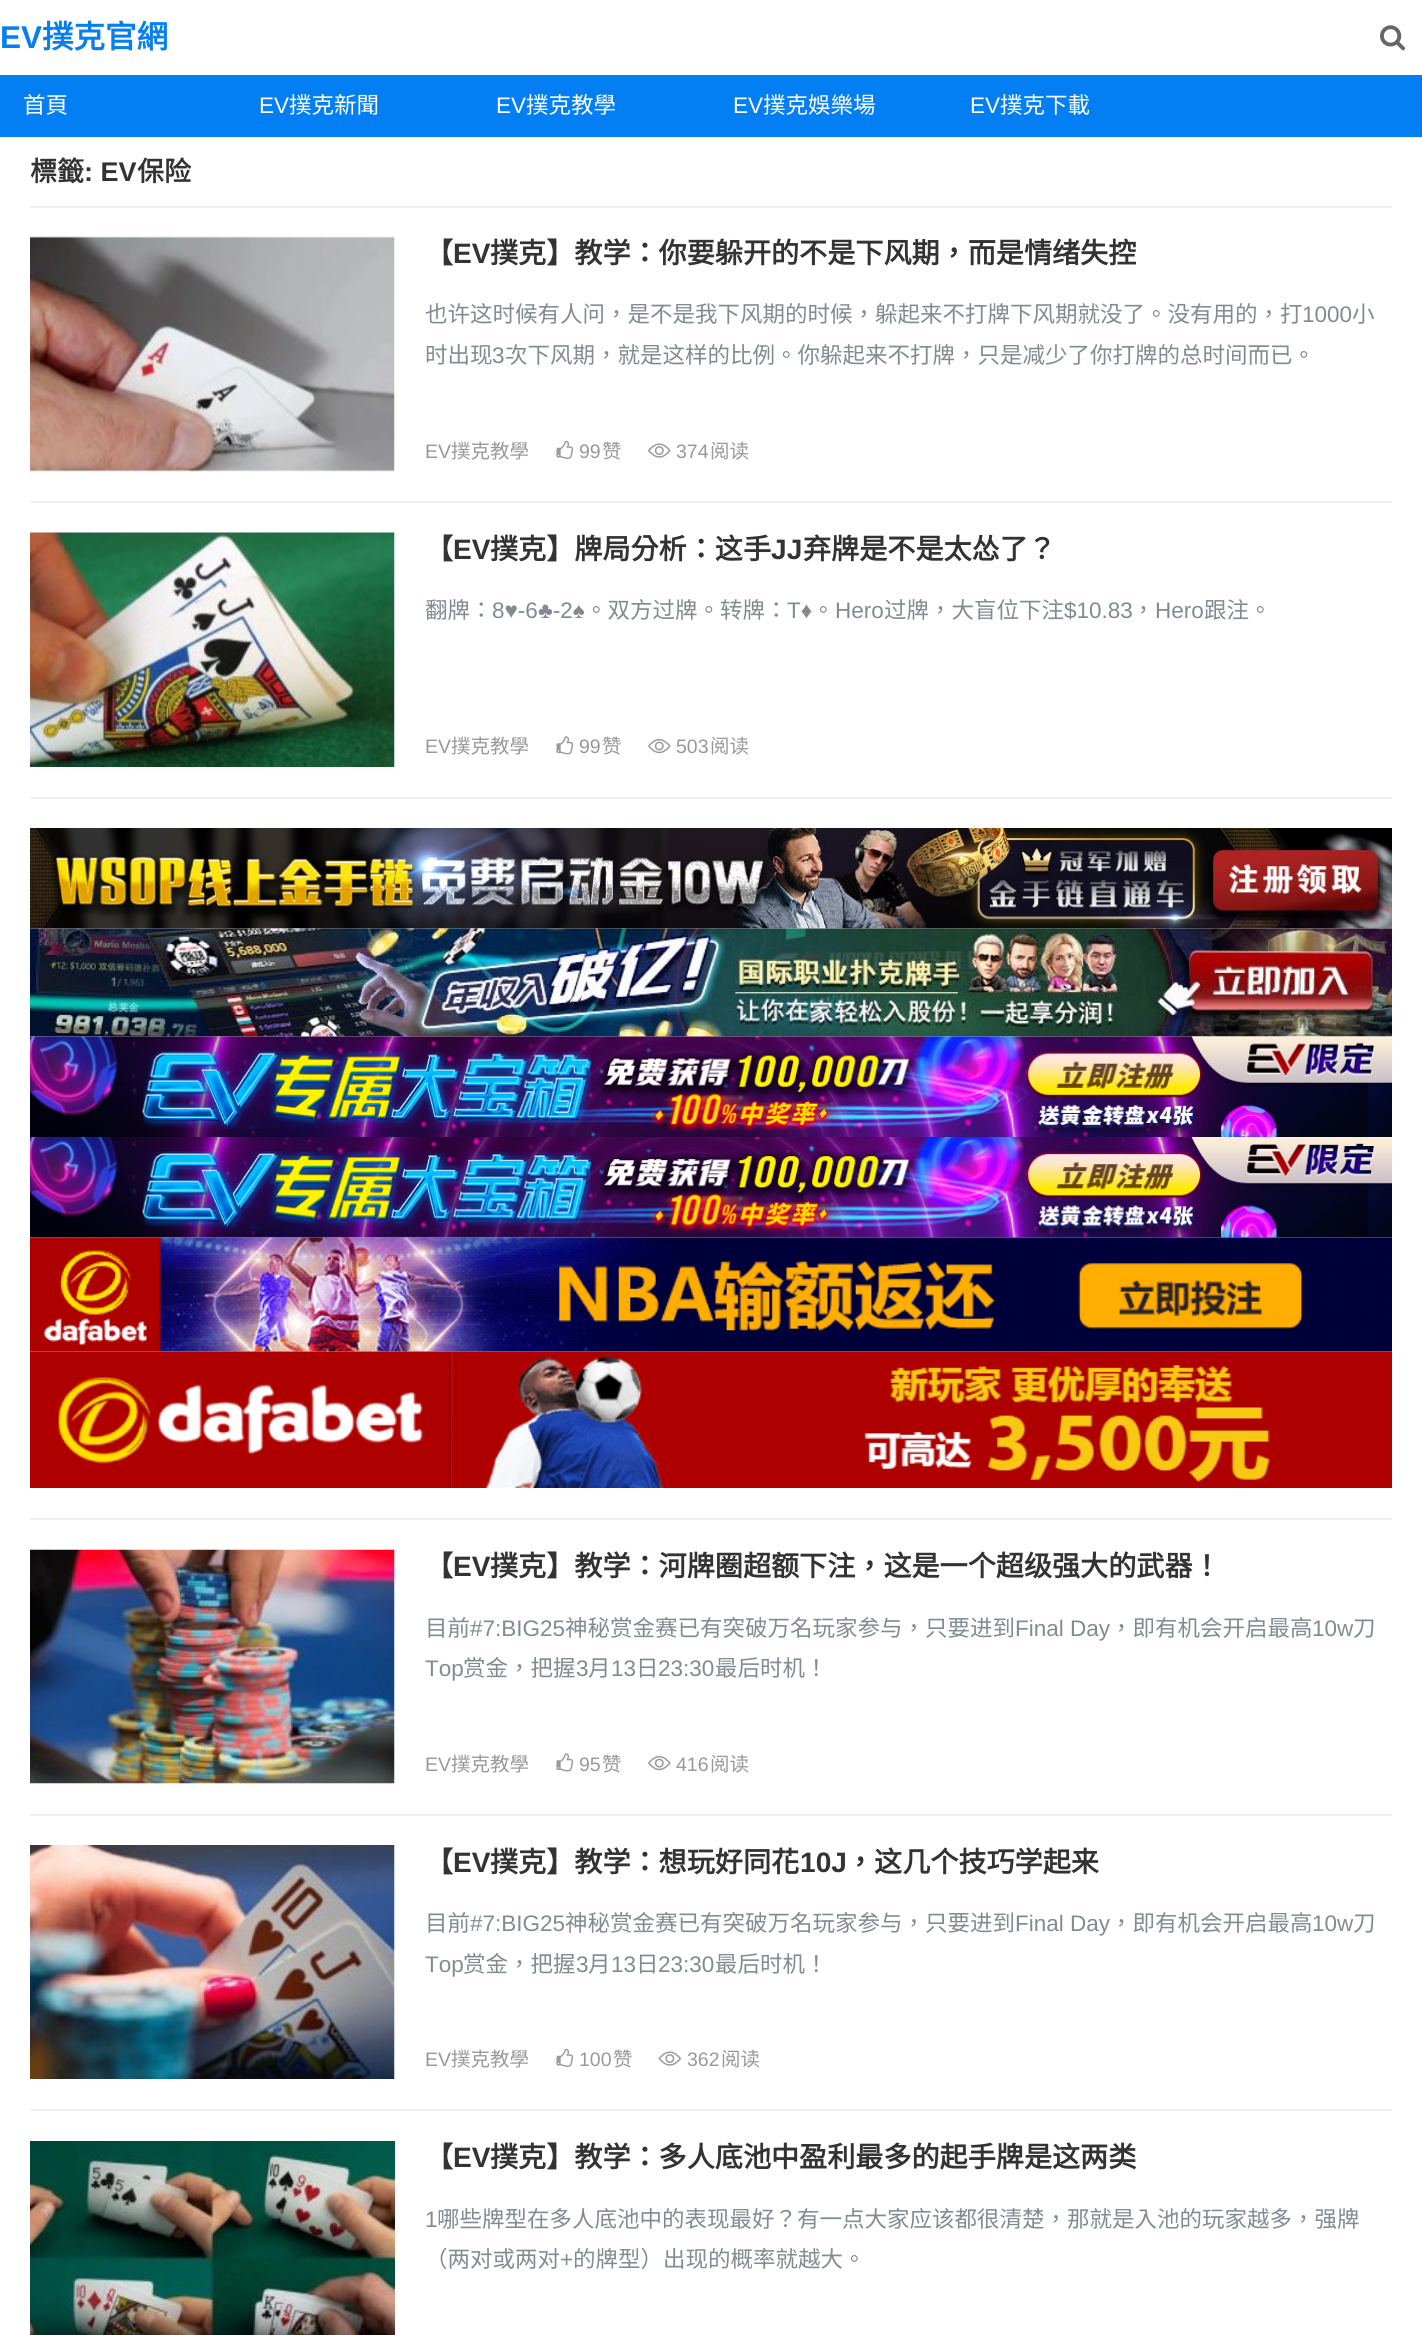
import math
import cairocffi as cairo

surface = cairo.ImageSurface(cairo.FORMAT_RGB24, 1422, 2335)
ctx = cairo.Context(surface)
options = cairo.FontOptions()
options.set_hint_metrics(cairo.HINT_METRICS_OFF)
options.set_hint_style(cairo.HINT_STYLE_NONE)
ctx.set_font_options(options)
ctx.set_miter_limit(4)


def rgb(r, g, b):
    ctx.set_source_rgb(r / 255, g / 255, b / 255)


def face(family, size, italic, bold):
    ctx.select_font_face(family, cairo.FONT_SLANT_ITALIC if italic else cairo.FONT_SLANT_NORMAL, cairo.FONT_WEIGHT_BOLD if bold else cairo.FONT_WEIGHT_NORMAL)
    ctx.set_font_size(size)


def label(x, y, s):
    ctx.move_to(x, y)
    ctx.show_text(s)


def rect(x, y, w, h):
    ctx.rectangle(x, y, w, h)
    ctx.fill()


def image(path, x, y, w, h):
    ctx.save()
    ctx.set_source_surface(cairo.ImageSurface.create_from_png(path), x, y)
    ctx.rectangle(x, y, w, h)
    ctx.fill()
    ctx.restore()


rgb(255, 255, 255)
ctx.paint()
face('Liberation Sans', 31.5, 0, 1)
rgb(3, 126, 243)
label(0, 48, 'EV')
face('Noto Sans CJK TC', 31.5, 0, 1)
label(42, 48, '撲克官網')
image('image0.png', 1380, 25, 25, 26)
rect(0, 75, 1422, 62)
face('Noto Sans CJK TC', 22.5, 0, 0)
rgb(255, 255, 255)
label(23, 113, '首頁')
face('Liberation Sans', 22.5, 0, 0)
label(259, 113, 'EV')
face('Noto Sans CJK TC', 22.5, 0, 0)
label(289, 113, '撲克新聞')
face('Liberation Sans', 22.5, 0, 0)
label(496, 113, 'EV')
face('Noto Sans CJK TC', 22.5, 0, 0)
label(526, 113, '撲克教學')
face('Liberation Sans', 22.5, 0, 0)
label(733, 113, 'EV')
face('Noto Sans CJK TC', 22.5, 0, 0)
label(763, 113, '撲克娛樂場')
face('Liberation Sans', 22.5, 0, 0)
label(970, 113, 'EV')
face('Noto Sans CJK TC', 22.5, 0, 0)
label(1000, 113, '撲克下載')
rgb(240, 240, 240)
rect(30, 206, 1362, 2)
face('Noto Sans CJK TC', 27, 0, 1)
rgb(51, 51, 51)
label(30, 181, '標籤')
face('Liberation Sans', 27, 0, 1)
label(84, 181, ': EV')
face('Noto Sans CJK TC', 27, 0, 1)
label(137, 181, '保险')
rgb(240, 240, 240)
rect(30, 501, 1362, 2)
image('image1.png', 30, 236, 365, 236)
face('Noto Sans CJK TC', 28.1, 0, 1)
rgb(51, 51, 51)
label(425, 263, '【')
face('Liberation Sans', 28.1, 0, 1)
label(453, 263, 'EV')
face('Noto Sans CJK TC', 28.1, 0, 1)
label(490, 263, '撲克】教学：你要躲开的不是下风期，而是情绪失控')
face('Noto Sans CJK TC', 22.5, 0, 0)
rgb(130, 138, 146)
label(425, 322, '也许这时候有人问，是不是我下风期的时候，躲起来不打牌下风期就没了。没有用的，打')
face('Liberation Sans', 22.5, 0, 0)
label(1302, 322, '1000')
face('Noto Sans CJK TC', 22.5, 0, 0)
label(1352, 322, '小')
label(425, 363, '时出现')
face('Liberation Sans', 22.5, 0, 0)
label(492, 363, '3')
face('Noto Sans CJK TC', 22.5, 0, 0)
label(505, 363, '次下风期，就是这样的比例。你躲起来不打牌，只是减少了你打牌的总时间而已。')
face('Liberation Sans', 19.5, 0, 0)
rgb(153, 153, 153)
label(425, 458, 'EV')
face('Noto Sans CJK TC', 19.5, 0, 0)
label(451, 458, '撲克教學')
image('image2.png', 556, 440, 18, 19)
face('Liberation Sans', 19.5, 0, 0)
label(579, 458, '99')
face('Noto Sans CJK TC', 19.5, 0, 0)
label(602, 458, '赞')
image('image3.png', 648, 443, 23, 15)
face('Liberation Sans', 19.5, 0, 0)
label(676, 458, '374')
face('Noto Sans CJK TC', 19.5, 0, 0)
label(710, 458, '阅读')
rgb(240, 240, 240)
rect(30, 797, 1362, 2)
image('image4.png', 30, 532, 365, 235)
face('Noto Sans CJK TC', 28.1, 0, 1)
rgb(51, 51, 51)
label(425, 559, '【')
face('Liberation Sans', 28.1, 0, 1)
label(453, 559, 'EV')
face('Noto Sans CJK TC', 28.1, 0, 1)
label(490, 559, '撲克】牌局分析：这手')
face('Liberation Sans', 28.1, 0, 1)
label(771, 559, 'JJ')
face('Noto Sans CJK TC', 28.1, 0, 1)
label(803, 559, '弃牌是不是太怂了？')
face('Noto Sans CJK TC', 22.5, 0, 0)
rgb(130, 138, 146)
label(425, 618, '翻牌：')
face('Liberation Sans', 22.5, 0, 0)
label(492, 618, '8♥-6♣-2♠')
face('Noto Sans CJK TC', 22.5, 0, 0)
label(585, 618, '。双方过牌。转牌：')
face('Liberation Sans', 22.5, 0, 0)
label(787, 618, 'T♦')
face('Noto Sans CJK TC', 22.5, 0, 0)
label(812, 618, '。')
face('Liberation Sans', 22.5, 0, 0)
label(835, 618, 'Hero')
face('Noto Sans CJK TC', 22.5, 0, 0)
label(884, 618, '过牌，大盲位下注')
face('Liberation Sans', 22.5, 0, 0)
label(1064, 618, '$10.83')
face('Noto Sans CJK TC', 22.5, 0, 0)
label(1132, 618, '，')
face('Liberation Sans', 22.5, 0, 0)
label(1155, 618, 'Hero')
face('Noto Sans CJK TC', 22.5, 0, 0)
label(1204, 618, '跟注。')
face('Liberation Sans', 19.5, 0, 0)
rgb(153, 153, 153)
label(425, 753, 'EV')
face('Noto Sans CJK TC', 19.5, 0, 0)
label(451, 753, '撲克教學')
image('image5.png', 556, 736, 18, 19)
face('Liberation Sans', 19.5, 0, 0)
label(579, 753, '99')
face('Noto Sans CJK TC', 19.5, 0, 0)
label(602, 753, '赞')
image('image6.png', 648, 738, 23, 16)
face('Liberation Sans', 19.5, 0, 0)
label(676, 753, '503')
face('Noto Sans CJK TC', 19.5, 0, 0)
label(710, 753, '阅读')
rgb(240, 240, 240)
rect(30, 1518, 1362, 2)
image('image7.png', 30, 828, 1362, 101)
image('image8.png', 30, 928, 1362, 109)
image('image9.png', 30, 1036, 1362, 101)
image('image10.png', 30, 1137, 1362, 101)
image('image11.png', 30, 1237, 1362, 115)
image('image12.png', 30, 1351, 1362, 137)
rect(30, 1814, 1362, 2)
image('image13.png', 30, 1549, 365, 235)
face('Noto Sans CJK TC', 28.1, 0, 1)
rgb(51, 51, 51)
label(425, 1576, '【')
face('Liberation Sans', 28.1, 0, 1)
label(453, 1576, 'EV')
face('Noto Sans CJK TC', 28.1, 0, 1)
label(490, 1576, '撲克】教学：河牌圈超额下注，这是一个超级强大的武器！')
face('Noto Sans CJK TC', 22.5, 0, 0)
rgb(130, 138, 146)
label(425, 1636, '目前')
face('Liberation Sans', 22.5, 0, 0)
label(470, 1636, '#7:BIG25')
face('Noto Sans CJK TC', 22.5, 0, 0)
label(565, 1636, '神秘赏金赛已有突破万名玩家参与，只要进到')
face('Liberation Sans', 22.5, 0, 0)
label(1015, 1636, 'Final Day')
face('Noto Sans CJK TC', 22.5, 0, 0)
label(1110, 1636, '，即有机会开启最高')
face('Liberation Sans', 22.5, 0, 0)
label(1312, 1636, '10w')
face('Noto Sans CJK TC', 22.5, 0, 0)
label(1353, 1636, '刀')
face('Liberation Sans', 22.5, 0, 0)
label(425, 1676, 'Top')
face('Noto Sans CJK TC', 22.5, 0, 0)
label(463, 1676, '赏金，把握')
face('Liberation Sans', 22.5, 0, 0)
label(576, 1676, '3')
face('Noto Sans CJK TC', 22.5, 0, 0)
label(588, 1676, '月')
face('Liberation Sans', 22.5, 0, 0)
label(611, 1676, '13')
face('Noto Sans CJK TC', 22.5, 0, 0)
label(636, 1676, '日')
face('Liberation Sans', 22.5, 0, 0)
label(658, 1676, '23:30')
face('Noto Sans CJK TC', 22.5, 0, 0)
label(715, 1676, '最后时机！')
face('Liberation Sans', 19.5, 0, 0)
rgb(153, 153, 153)
label(425, 1771, 'EV')
face('Noto Sans CJK TC', 19.5, 0, 0)
label(451, 1771, '撲克教學')
image('image5.png', 556, 1753, 18, 19)
face('Liberation Sans', 19.5, 0, 0)
label(579, 1771, '95')
face('Noto Sans CJK TC', 19.5, 0, 0)
label(602, 1771, '赞')
image('image6.png', 648, 1755, 23, 16)
face('Liberation Sans', 19.5, 0, 0)
label(676, 1771, '416')
face('Noto Sans CJK TC', 19.5, 0, 0)
label(710, 1771, '阅读')
rgb(240, 240, 240)
rect(30, 2109, 1362, 2)
image('image14.png', 30, 1845, 365, 234)
face('Noto Sans CJK TC', 28.1, 0, 1)
rgb(51, 51, 51)
label(425, 1872, '【')
face('Liberation Sans', 28.1, 0, 1)
label(453, 1872, 'EV')
face('Noto Sans CJK TC', 28.1, 0, 1)
label(490, 1872, '撲克】教学：想玩好同花')
face('Liberation Sans', 28.1, 0, 1)
label(800, 1872, '10J')
face('Noto Sans CJK TC', 28.1, 0, 1)
label(846, 1872, '，这几个技巧学起来')
face('Noto Sans CJK TC', 22.5, 0, 0)
rgb(130, 138, 146)
label(425, 1931, '目前')
face('Liberation Sans', 22.5, 0, 0)
label(470, 1931, '#7:BIG25')
face('Noto Sans CJK TC', 22.5, 0, 0)
label(565, 1931, '神秘赏金赛已有突破万名玩家参与，只要进到')
face('Liberation Sans', 22.5, 0, 0)
label(1015, 1931, 'Final Day')
face('Noto Sans CJK TC', 22.5, 0, 0)
label(1110, 1931, '，即有机会开启最高')
face('Liberation Sans', 22.5, 0, 0)
label(1312, 1931, '10w')
face('Noto Sans CJK TC', 22.5, 0, 0)
label(1353, 1931, '刀')
face('Liberation Sans', 22.5, 0, 0)
label(425, 1972, 'Top')
face('Noto Sans CJK TC', 22.5, 0, 0)
label(463, 1972, '赏金，把握')
face('Liberation Sans', 22.5, 0, 0)
label(576, 1972, '3')
face('Noto Sans CJK TC', 22.5, 0, 0)
label(588, 1972, '月')
face('Liberation Sans', 22.5, 0, 0)
label(611, 1972, '13')
face('Noto Sans CJK TC', 22.5, 0, 0)
label(636, 1972, '日')
face('Liberation Sans', 22.5, 0, 0)
label(658, 1972, '23:30')
face('Noto Sans CJK TC', 22.5, 0, 0)
label(715, 1972, '最后时机！')
face('Liberation Sans', 19.5, 0, 0)
rgb(153, 153, 153)
label(425, 2066, 'EV')
face('Noto Sans CJK TC', 19.5, 0, 0)
label(451, 2066, '撲克教學')
image('image2.png', 556, 2048, 18, 19)
face('Liberation Sans', 19.5, 0, 0)
label(579, 2066, '100')
face('Noto Sans CJK TC', 19.5, 0, 0)
label(613, 2066, '赞')
image('image15.png', 658, 2051, 23, 15)
face('Liberation Sans', 19.5, 0, 0)
label(687, 2066, '362')
face('Noto Sans CJK TC', 19.5, 0, 0)
label(721, 2066, '阅读')
image('image16.png', 30, 2141, 365, 194)
face('Noto Sans CJK TC', 28.1, 0, 1)
rgb(51, 51, 51)
label(425, 2167, '【')
face('Liberation Sans', 28.1, 0, 1)
label(453, 2167, 'EV')
face('Noto Sans CJK TC', 28.1, 0, 1)
label(490, 2167, '撲克】教学：多人底池中盈利最多的起手牌是这两类')
face('Liberation Sans', 22.5, 0, 0)
rgb(130, 138, 146)
label(425, 2227, '1')
face('Noto Sans CJK TC', 22.5, 0, 0)
label(437, 2227, '哪些牌型在多人底池中的表现最好？有一点大家应该都很清楚，那就是入池的玩家越多，强牌')
label(425, 2267, '（两对或两对')
face('Liberation Sans', 22.5, 0, 0)
label(560, 2267, '+')
face('Noto Sans CJK TC', 22.5, 0, 0)
label(573, 2267, '的牌型）出现的概率就越大。')
surface.write_to_png('render.png')
